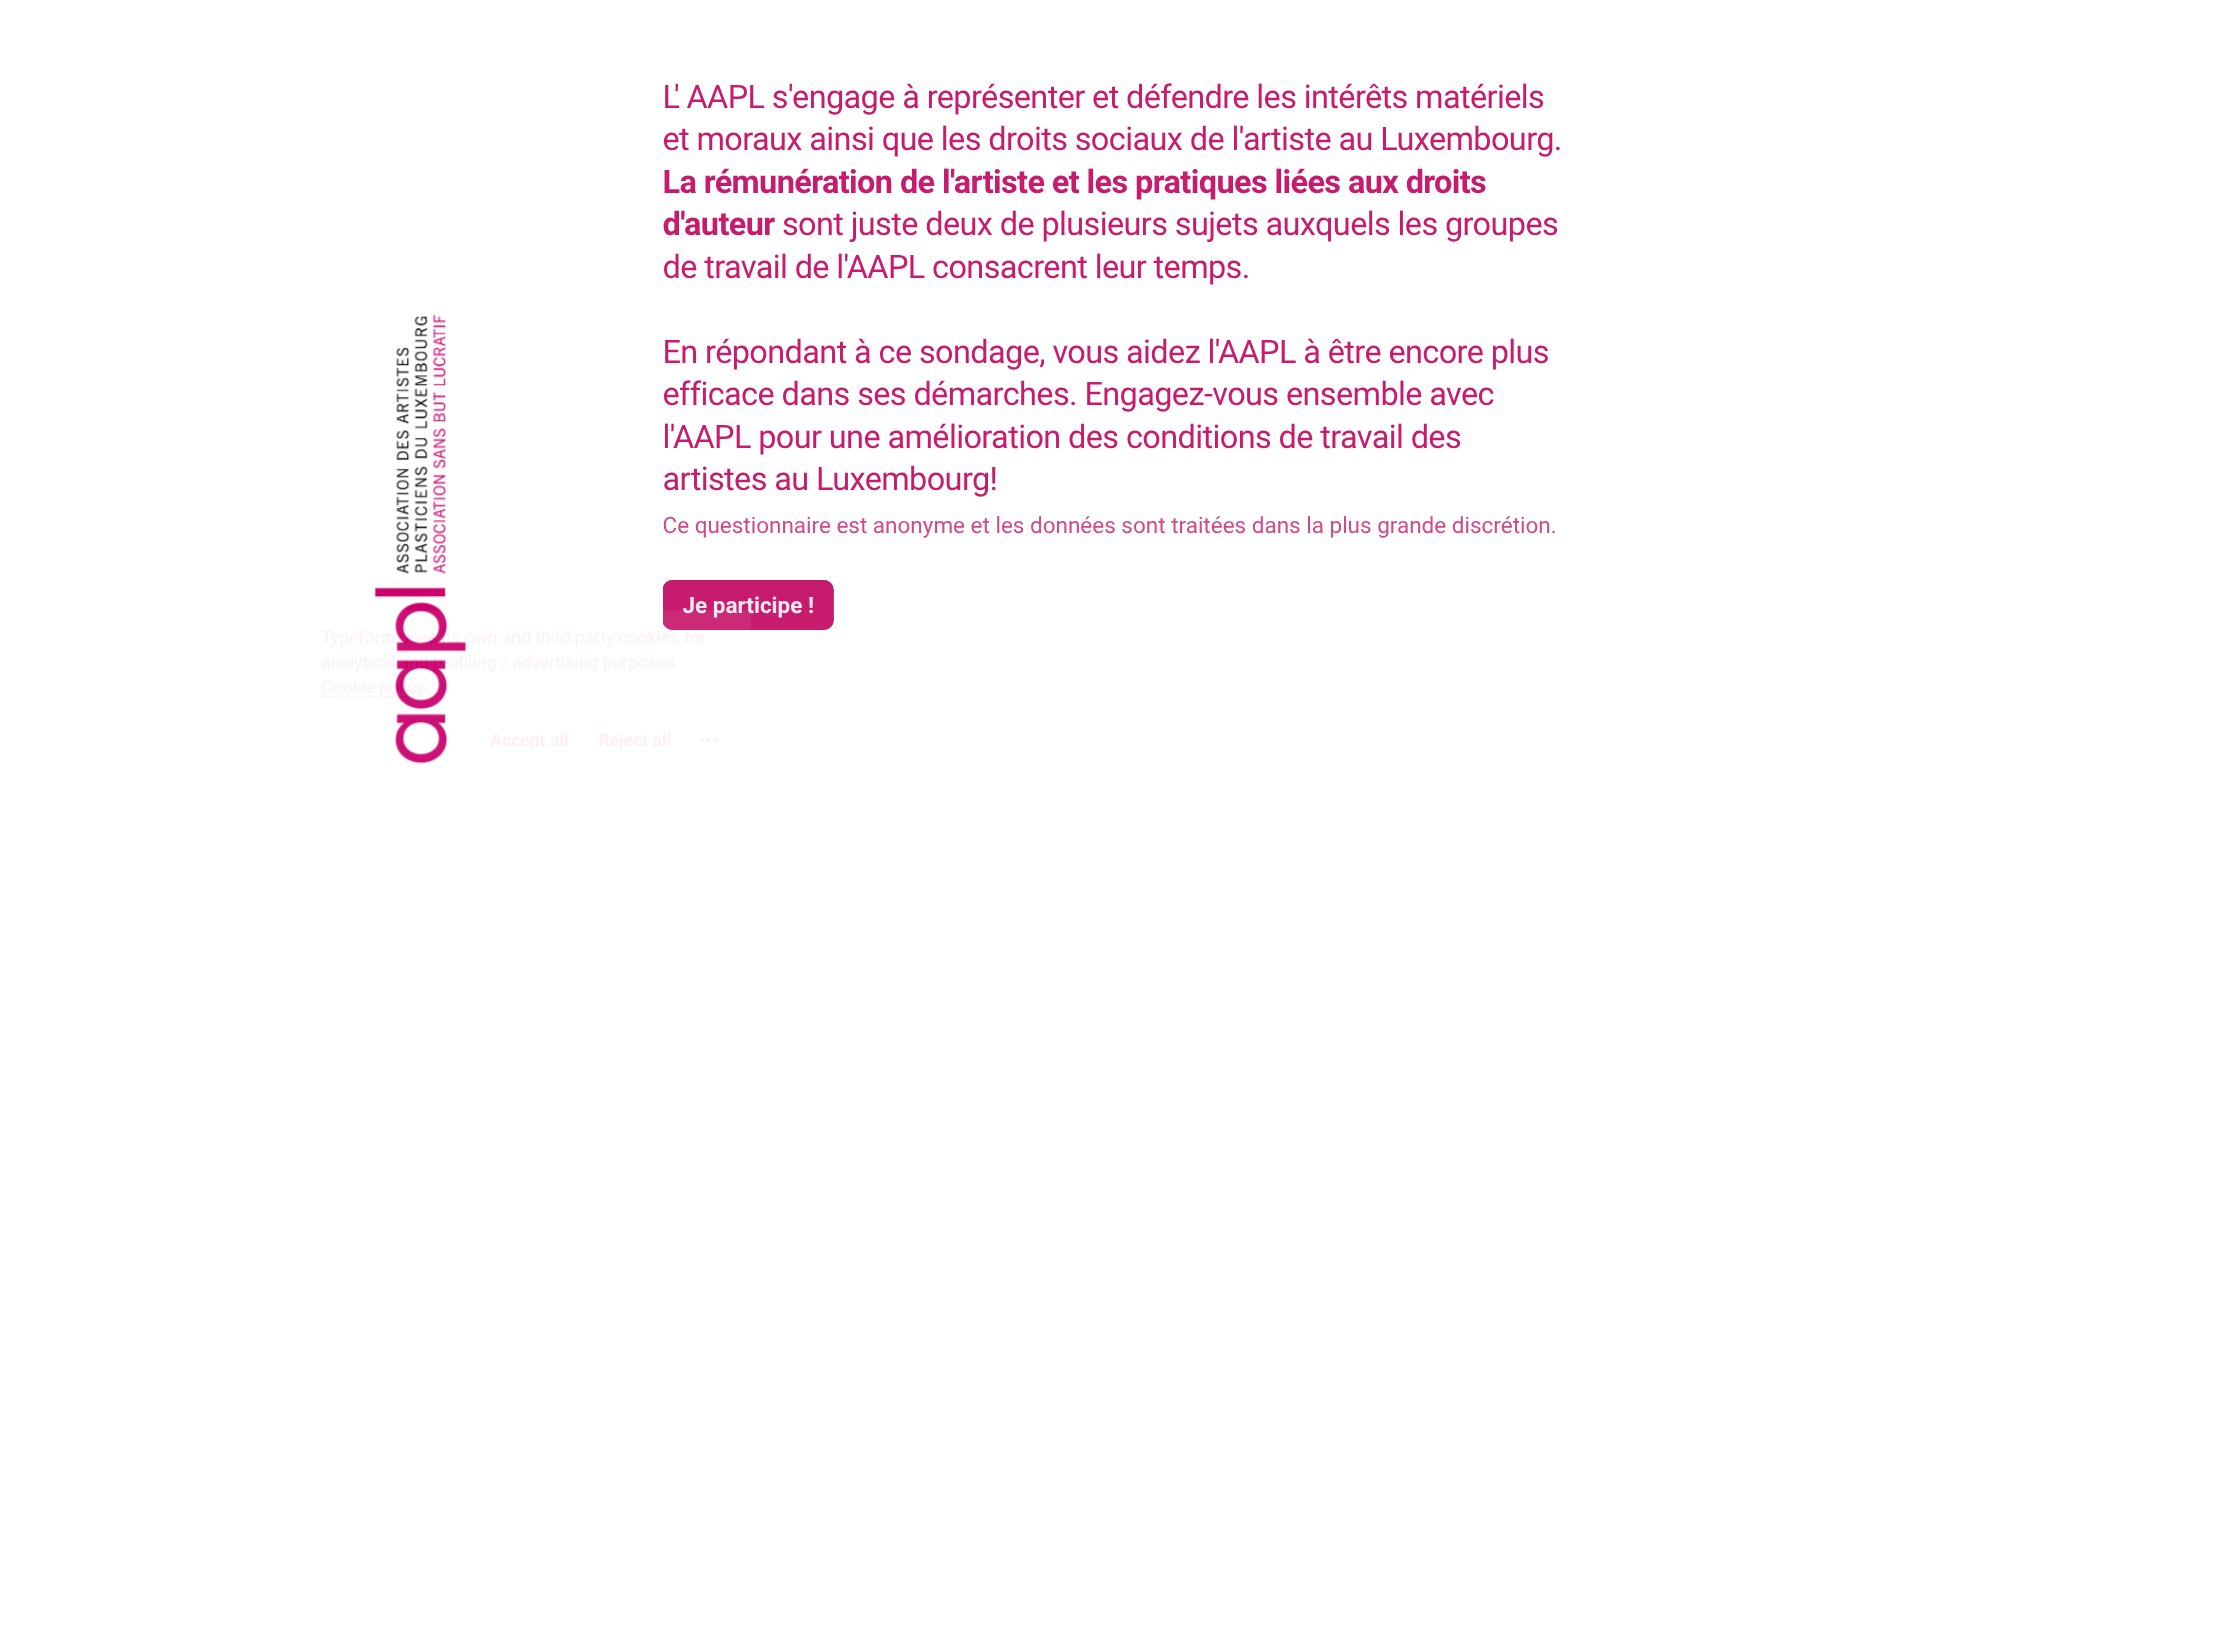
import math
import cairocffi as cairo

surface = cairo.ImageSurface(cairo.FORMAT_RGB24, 2224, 1634)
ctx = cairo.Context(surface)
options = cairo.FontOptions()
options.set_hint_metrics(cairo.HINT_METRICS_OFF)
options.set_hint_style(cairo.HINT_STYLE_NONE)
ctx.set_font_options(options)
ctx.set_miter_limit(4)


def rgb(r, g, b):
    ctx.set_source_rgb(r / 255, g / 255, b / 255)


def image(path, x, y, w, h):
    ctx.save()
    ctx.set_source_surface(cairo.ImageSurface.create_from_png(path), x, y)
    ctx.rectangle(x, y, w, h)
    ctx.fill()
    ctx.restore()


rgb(255, 255, 255)
ctx.paint()
image('image0.png', 321, 83, 1239, 681)
surface.write_to_png('render.png')
